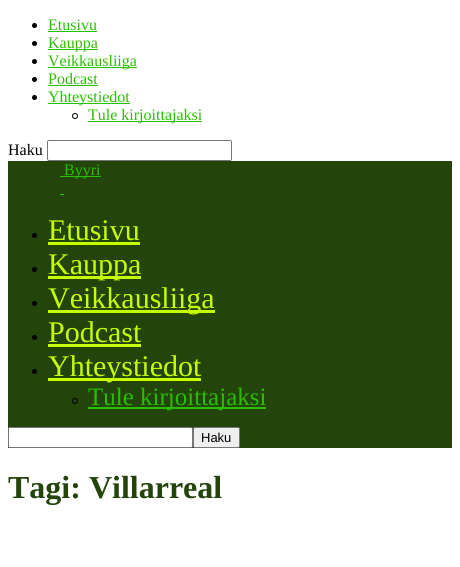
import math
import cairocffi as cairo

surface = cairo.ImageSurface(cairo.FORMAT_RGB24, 460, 567)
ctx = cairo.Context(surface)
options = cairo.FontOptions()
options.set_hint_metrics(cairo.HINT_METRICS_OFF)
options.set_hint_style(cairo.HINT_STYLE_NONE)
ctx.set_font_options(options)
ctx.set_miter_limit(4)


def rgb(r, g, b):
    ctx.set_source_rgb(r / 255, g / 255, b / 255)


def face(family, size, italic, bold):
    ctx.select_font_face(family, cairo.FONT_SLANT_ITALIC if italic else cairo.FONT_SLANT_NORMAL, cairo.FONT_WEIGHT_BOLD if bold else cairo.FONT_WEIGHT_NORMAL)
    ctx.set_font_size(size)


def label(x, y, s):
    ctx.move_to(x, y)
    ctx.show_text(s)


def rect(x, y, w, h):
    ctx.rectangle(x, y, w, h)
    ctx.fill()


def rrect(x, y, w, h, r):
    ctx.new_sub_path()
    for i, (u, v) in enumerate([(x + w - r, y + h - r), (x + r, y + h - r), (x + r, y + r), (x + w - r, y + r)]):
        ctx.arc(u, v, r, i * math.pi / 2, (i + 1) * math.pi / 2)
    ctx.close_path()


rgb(255, 255, 255)
ctx.paint()
rgb(0, 0, 0)
ctx.arc(34.5, 25.5, 2.5, 0, 2 * math.pi)
ctx.fill()
face('Liberation Serif', 16, 0, 0)
rgb(41, 191, 0)
label(48, 30, 'Etusivu')
rect(48, 31, 49, 1)
rgb(0, 0, 0)
ctx.new_path()
ctx.arc(34.5, 43.5, 2.5, 0, 2 * math.pi)
ctx.fill()
rgb(41, 191, 0)
rect(48, 49, 50, 1)
label(48, 48, 'Kauppa')
rgb(0, 0, 0)
ctx.new_path()
ctx.arc(34.5, 61.5, 2.5, 0, 2 * math.pi)
ctx.fill()
rgb(41, 191, 0)
rect(48, 67, 89, 1)
label(48, 66, 'Veikkausliiga')
rgb(0, 0, 0)
ctx.new_path()
ctx.arc(34.5, 79.5, 2.5, 0, 2 * math.pi)
ctx.fill()
rgb(41, 191, 0)
label(48, 84, 'Podcast')
rect(48, 85, 50, 1)
rgb(0, 0, 0)
ctx.new_path()
ctx.arc(34.5, 97.5, 2.5, 0, 2 * math.pi)
ctx.fill()
rgb(41, 191, 0)
rect(48, 103, 82, 1)
label(48, 102, 'Yhteystiedot')
ctx.new_path()
ctx.arc(75, 116, 2.5, 0, 2 * math.pi)
rgb(0, 0, 0)
ctx.set_line_width(1)
ctx.stroke()
rgb(41, 191, 0)
rect(88, 121, 114, 1)
label(88, 120, 'Tule kirjoittajaksi')
rgb(0, 0, 0)
label(8, 155, 'Haku')
rrect(47.5, 140.5, 184, 20, 1.5)
rgb(118, 118, 118)
ctx.stroke()
rgb(35, 68, 11)
rect(8, 161, 444, 287)
rgb(41, 191, 0)
rect(60, 176, 41, 1)
label(64, 175, 'Byyri')
rect(60, 194, 4, 1)
rgb(0, 0, 0)
ctx.new_path()
ctx.arc(34.5, 235.5, 2.5, 0, 2 * math.pi)
ctx.fill()
face('Liberation Serif', 30, 0, 0)
rgb(199, 255, 1)
label(48, 240, 'Etusivu')
rect(48, 242, 92, 3)
rgb(0, 0, 0)
ctx.new_path()
ctx.arc(34.5, 269.5, 2.5, 0, 2 * math.pi)
ctx.fill()
rgb(199, 255, 1)
rect(48, 276, 93, 3)
label(48, 274, 'Kauppa')
rgb(0, 0, 0)
ctx.new_path()
ctx.arc(34.5, 303.5, 2.5, 0, 2 * math.pi)
ctx.fill()
rgb(199, 255, 1)
rect(48, 310, 167, 3)
label(48, 308, 'Veikkausliiga')
rgb(0, 0, 0)
ctx.new_path()
ctx.arc(34.5, 337.5, 2.5, 0, 2 * math.pi)
ctx.fill()
rgb(199, 255, 1)
label(48, 342, 'Podcast')
rect(48, 344, 93, 3)
rgb(0, 0, 0)
ctx.new_path()
ctx.arc(34.5, 371.5, 2.5, 0, 2 * math.pi)
ctx.fill()
rgb(199, 255, 1)
rect(48, 378, 153, 3)
label(48, 376, 'Yhteystiedot')
ctx.new_path()
ctx.arc(75, 401, 2.5, 0, 2 * math.pi)
rgb(0, 0, 0)
ctx.stroke()
rgb(41, 191, 0)
rect(88, 407, 178, 2)
face('Liberation Serif', 25, 0, 0)
label(88, 405, 'Tule kirjoittajaksi')
rgb(255, 255, 255)
rrect(8.5, 427.5, 184, 20, 1.5)
ctx.fill_preserve()
rgb(118, 118, 118)
ctx.stroke()
rgb(239, 239, 239)
rrect(193.5, 427.5, 46, 20, 1.5)
ctx.fill_preserve()
rgb(118, 118, 118)
ctx.stroke()
face('Liberation Sans', 13, 0, 0)
rgb(0, 0, 0)
label(201, 442, 'Haku')
face('Liberation Serif', 32, 0, 1)
rgb(35, 68, 11)
label(8, 498, 'Tagi: Villarreal')
surface.write_to_png('render.png')
